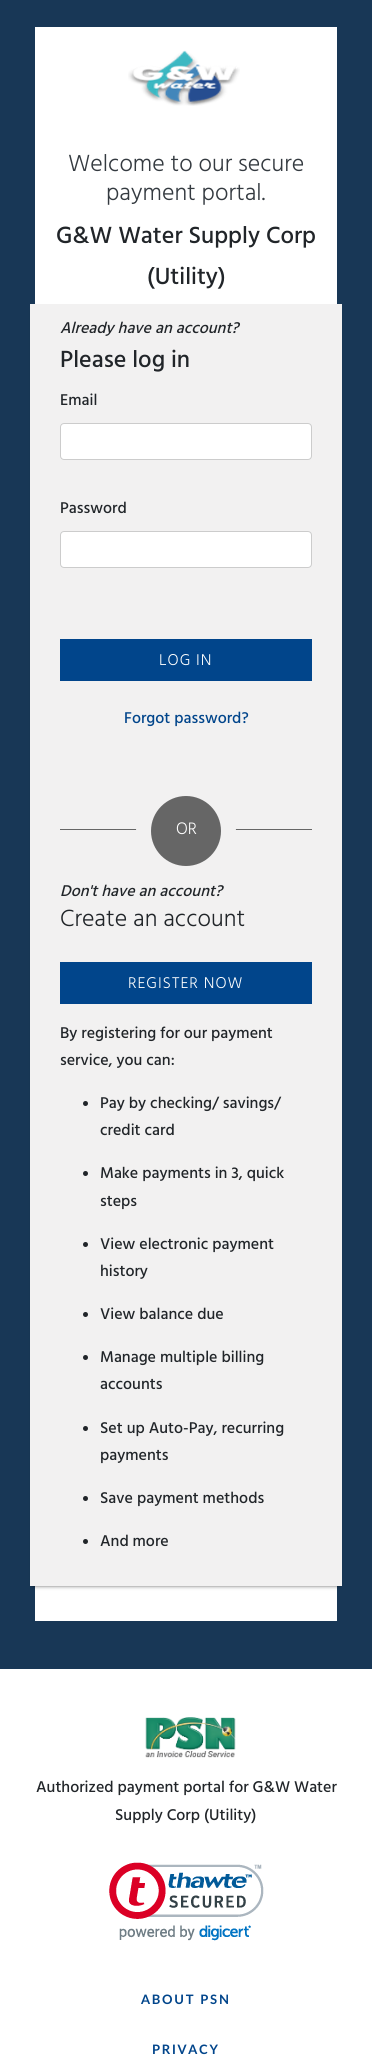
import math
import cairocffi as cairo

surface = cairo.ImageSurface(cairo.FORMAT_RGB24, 372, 2060)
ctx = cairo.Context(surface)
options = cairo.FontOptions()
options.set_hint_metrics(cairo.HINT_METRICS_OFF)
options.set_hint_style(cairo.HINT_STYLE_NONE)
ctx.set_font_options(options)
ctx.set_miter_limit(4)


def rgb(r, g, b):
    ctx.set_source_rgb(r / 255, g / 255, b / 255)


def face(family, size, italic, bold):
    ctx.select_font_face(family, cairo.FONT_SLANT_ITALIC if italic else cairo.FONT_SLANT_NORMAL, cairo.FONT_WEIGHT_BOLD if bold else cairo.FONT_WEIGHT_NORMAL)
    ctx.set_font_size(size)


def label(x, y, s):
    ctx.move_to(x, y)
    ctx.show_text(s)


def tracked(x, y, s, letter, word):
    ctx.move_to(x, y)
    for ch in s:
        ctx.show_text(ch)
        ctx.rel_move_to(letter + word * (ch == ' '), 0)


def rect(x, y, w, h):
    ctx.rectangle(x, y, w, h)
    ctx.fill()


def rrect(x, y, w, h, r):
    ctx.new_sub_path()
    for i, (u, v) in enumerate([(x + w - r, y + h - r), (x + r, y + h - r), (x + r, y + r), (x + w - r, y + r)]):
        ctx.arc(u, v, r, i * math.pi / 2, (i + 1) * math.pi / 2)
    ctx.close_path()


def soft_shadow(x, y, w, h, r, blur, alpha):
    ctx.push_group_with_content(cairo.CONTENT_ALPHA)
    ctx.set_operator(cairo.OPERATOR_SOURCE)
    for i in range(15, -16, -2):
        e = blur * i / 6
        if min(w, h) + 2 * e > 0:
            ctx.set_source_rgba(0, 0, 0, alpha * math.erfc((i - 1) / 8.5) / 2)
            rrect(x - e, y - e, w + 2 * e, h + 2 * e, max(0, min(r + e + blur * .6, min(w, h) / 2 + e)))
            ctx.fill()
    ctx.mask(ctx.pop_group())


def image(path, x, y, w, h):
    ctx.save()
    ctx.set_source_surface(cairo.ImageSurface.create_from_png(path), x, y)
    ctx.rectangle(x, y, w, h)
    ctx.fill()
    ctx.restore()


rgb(24, 55, 86)
ctx.paint()
rgb(255, 255, 255)
rect(35, 27, 302, 1594)
image('image0.png', 128, 50, 112, 56)
face('Hind Madurai Light', 24, 0, 0)
rgb(52, 58, 64)
label(68, 171, 'Welcome to our secure')
label(106, 200, 'payment portal.')
face('Hind Madurai Medium', 24, 0, 0)
rgb(33, 37, 41)
label(56, 243, 'G&W Water Supply Corp')
label(147, 284, '(Utility)')
rgb(0, 0, 0)
soft_shadow(33, 310, 306, 1276, 0, 2, 0.6)
rgb(242, 241, 241)
rect(30, 304, 312, 1282)
face('Hind Madurai Medium', 16, 1, 0)
rgb(33, 37, 41)
label(60, 333, 'Already have an account?')
face('Hind Madurai Medium', 24, 0, 0)
label(60, 367, 'Please log in')
face('Hind Madurai Medium', 16, 0, 0)
label(60, 405, 'Email')
rgb(255, 255, 255)
rrect(60.5, 423.5, 251, 36, 3.5)
ctx.fill_preserve()
rgb(204, 204, 204)
ctx.set_line_width(1)
ctx.stroke()
rgb(33, 37, 41)
label(60, 513, 'Password')
rgb(255, 255, 255)
rrect(60.5, 531.5, 251, 36, 3.5)
ctx.fill_preserve()
rgb(204, 204, 204)
ctx.stroke()
rgb(1, 69, 139)
rect(60, 639, 252, 42)
face('Hind Madurai Light', 16, 0, 0)
rgb(255, 255, 255)
tracked(159, 665, 'LOG IN', 1, 0)
face('Hind Madurai Medium', 16, 0, 0)
rgb(1, 69, 139)
label(124, 723, 'Forgot password?')
rgb(102, 102, 102)
rect(60, 829, 252, 1)
ctx.new_path()
ctx.arc(186, 831, 42.5, 0, 2 * math.pi)
ctx.fill_preserve()
rgb(242, 241, 241)
ctx.set_line_width(15)
ctx.stroke()
face('Hind Madurai Light', 17, 0, 0)
rgb(255, 255, 255)
label(176, 834, 'OR')
face('Hind Madurai Medium', 16, 1, 0)
rgb(33, 37, 41)
label(60, 896, 'Don\'t have an account?')
face('Hind Madurai Light', 24, 0, 0)
label(60, 926, 'Create an account')
rgb(1, 69, 139)
rect(60, 962, 252, 42)
face('Hind Madurai Light', 16, 0, 0)
rgb(255, 255, 255)
tracked(128, 988, 'REGISTER NOW', 1, 0)
face('Hind Madurai Medium', 16, 0, 0)
rgb(33, 37, 41)
label(60, 1038, 'By registering for our payment')
label(60, 1065, 'service, you can:')
ctx.new_path()
ctx.arc(85.5, 1103.5, 2.5, 0, 2 * math.pi)
ctx.fill()
label(100, 1108, 'Pay by checking/ savings/')
label(100, 1135, 'credit card')
ctx.new_path()
ctx.arc(85.5, 1173.5, 2.5, 0, 2 * math.pi)
ctx.fill()
label(100, 1178, 'Make payments in 3, quick')
label(100, 1206, 'steps')
ctx.new_path()
ctx.arc(85.5, 1244.5, 2.5, 0, 2 * math.pi)
ctx.fill()
label(100, 1249, 'View electronic payment')
label(100, 1276, 'history')
ctx.new_path()
ctx.arc(85.5, 1314.5, 2.5, 0, 2 * math.pi)
ctx.fill()
label(100, 1319, 'View balance due')
ctx.new_path()
ctx.arc(85.5, 1357.5, 2.5, 0, 2 * math.pi)
ctx.fill()
label(100, 1362, 'Manage multiple billing')
label(100, 1389, 'accounts')
ctx.new_path()
ctx.arc(85.5, 1428.5, 2.5, 0, 2 * math.pi)
ctx.fill()
label(100, 1433, 'Set up Auto-Pay, recurring')
label(100, 1460, 'payments')
ctx.new_path()
ctx.arc(85.5, 1498.5, 2.5, 0, 2 * math.pi)
ctx.fill()
label(100, 1503, 'Save payment methods')
ctx.new_path()
ctx.arc(85.5, 1541.5, 2.5, 0, 2 * math.pi)
ctx.fill()
label(100, 1546, 'And more')
rgb(255, 255, 255)
rect(0, 1669, 372, 391)
image('image1.png', 145, 1717, 91, 41)
rgb(33, 37, 41)
label(36, 1792, 'Authorized payment portal for G&W Water')
label(115, 1820, 'Supply Corp (Utility)')
image('image2.png', 109, 1862, 155, 79)
face('Lato', 13, 0, 1)
rgb(1, 69, 139)
tracked(141, 2004, 'ABOUT PSN', 1.75, 0)
tracked(152, 2054, 'PRIVACY', 1.75, 0)
surface.write_to_png('render.png')
